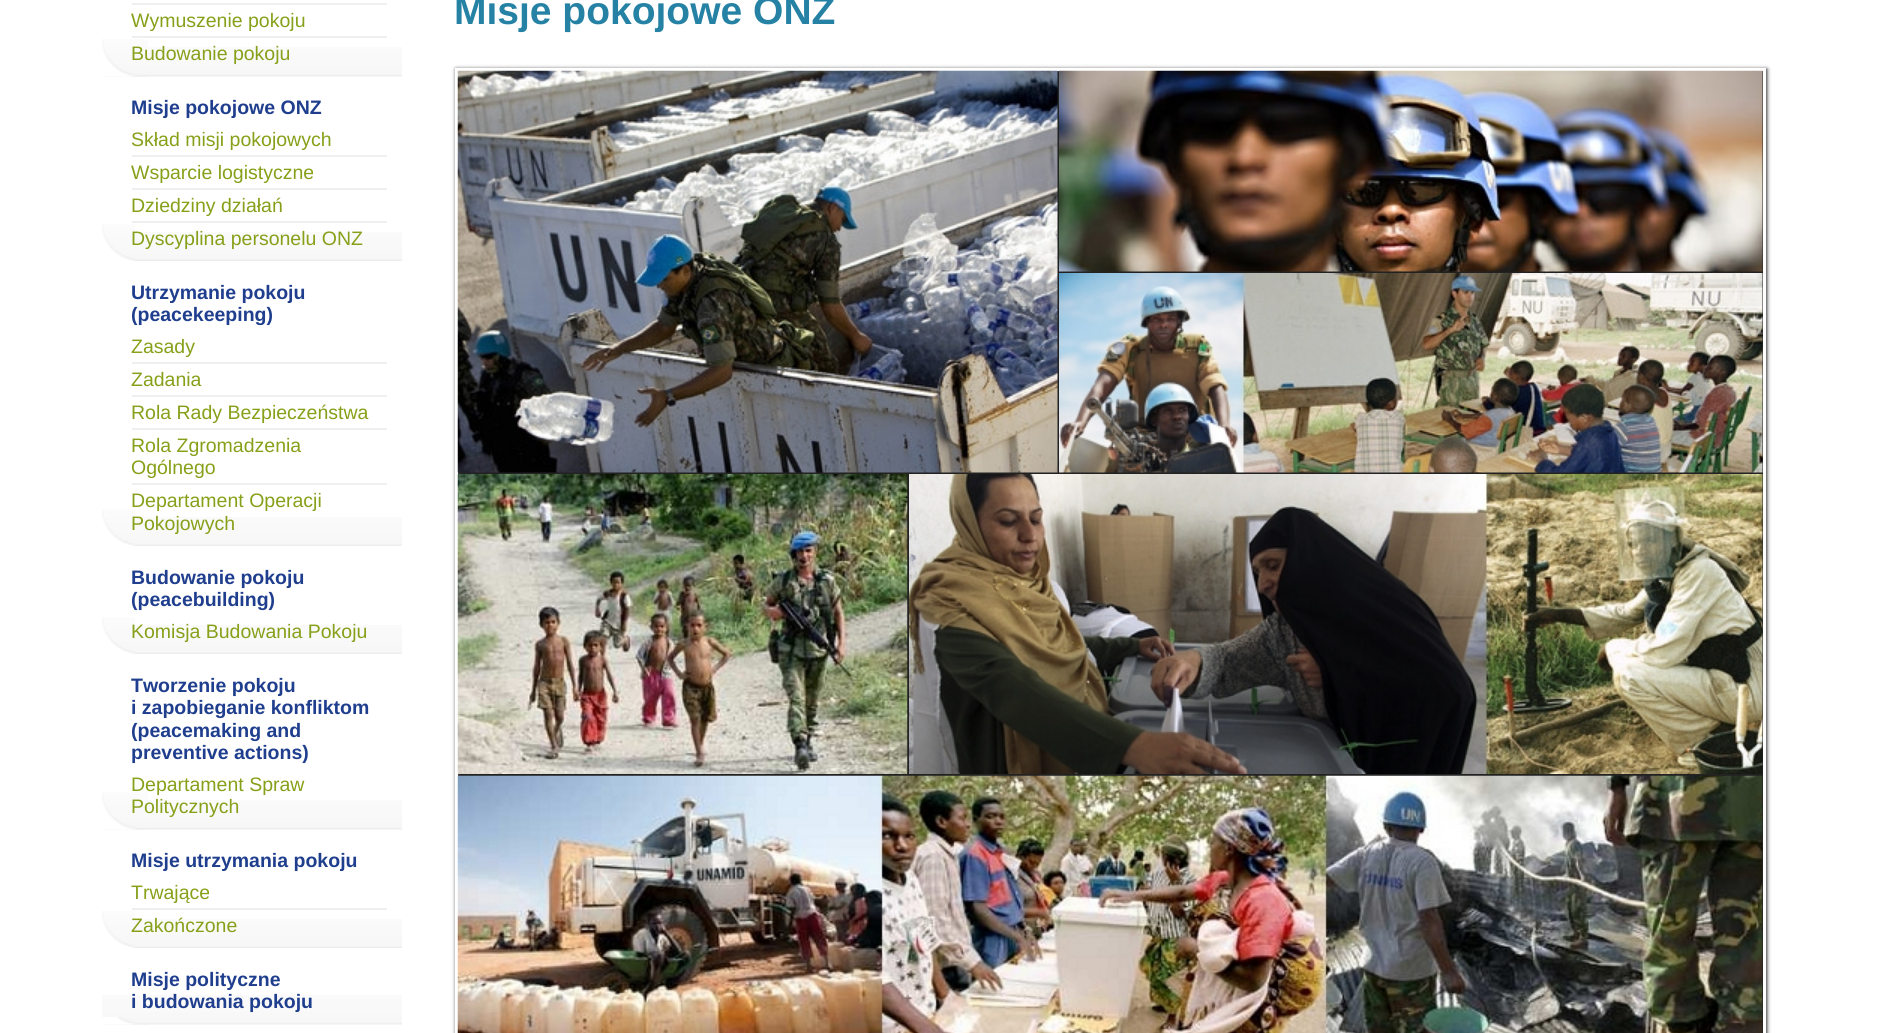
import math
import cairocffi as cairo

surface = cairo.ImageSurface(cairo.FORMAT_RGB24, 1890, 1033)
ctx = cairo.Context(surface)
options = cairo.FontOptions()
options.set_hint_metrics(cairo.HINT_METRICS_OFF)
options.set_hint_style(cairo.HINT_STYLE_NONE)
ctx.set_font_options(options)
ctx.set_miter_limit(4)


def rgb(r, g, b):
    ctx.set_source_rgb(r / 255, g / 255, b / 255)


def face(family, size, italic, bold):
    ctx.select_font_face(family, cairo.FONT_SLANT_ITALIC if italic else cairo.FONT_SLANT_NORMAL, cairo.FONT_WEIGHT_BOLD if bold else cairo.FONT_WEIGHT_NORMAL)
    ctx.set_font_size(size)


def label(x, y, s):
    ctx.move_to(x, y)
    ctx.show_text(s)


def rect(x, y, w, h):
    ctx.rectangle(x, y, w, h)
    ctx.fill()


def rrect(x, y, w, h, r):
    ctx.new_sub_path()
    for i, (u, v) in enumerate([(x + w - r, y + h - r), (x + r, y + h - r), (x + r, y + r), (x + w - r, y + r)]):
        ctx.arc(u, v, r, i * math.pi / 2, (i + 1) * math.pi / 2)
    ctx.close_path()


def soft_shadow(x, y, w, h, r, blur, alpha):
    ctx.push_group_with_content(cairo.CONTENT_ALPHA)
    ctx.set_operator(cairo.OPERATOR_SOURCE)
    for i in range(15, -16, -2):
        e = blur * i / 6
        if min(w, h) + 2 * e > 0:
            ctx.set_source_rgba(0, 0, 0, alpha * math.erfc((i - 1) / 8.5) / 2)
            rrect(x - e, y - e, w + 2 * e, h + 2 * e, max(0, min(r + e + blur * .6, min(w, h) / 2 + e)))
            ctx.fill()
    ctx.mask(ctx.pop_group())


def image(path, x, y, w, h):
    ctx.save()
    ctx.set_source_surface(cairo.ImageSurface.create_from_png(path), x, y)
    ctx.rectangle(x, y, w, h)
    ctx.fill()
    ctx.restore()


rgb(255, 255, 255)
ctx.paint()
image('image0.png', 102, 47, 300, 30)
image('image1.png', 102, 39, 46, 38)
rgb(239, 239, 239)
rect(132, 3, 255, 2)
face('Liberation Sans', 19.5, 0, 0)
rgb(135, 160, 25)
label(131, 27, 'Wymuszenie pokoju')
rgb(239, 239, 239)
rect(132, 36, 255, 2)
rgb(135, 160, 25)
label(131, 60, 'Budowanie pokoju')
image('image2.png', 135, 232, 267, 29)
face('Liberation Sans', 19.5, 0, 1)
rgb(31, 62, 142)
label(131, 114, 'Misje pokojowe ONZ')
image('image3.png', 102, 224, 33, 37)
face('Liberation Sans', 19.5, 0, 0)
rgb(135, 160, 25)
label(131, 146, 'Skład misji pokojowych')
rgb(239, 239, 239)
rect(132, 155, 255, 2)
rgb(135, 160, 25)
label(131, 179, 'Wsparcie logistyczne')
rgb(239, 239, 239)
rect(132, 188, 255, 2)
rgb(135, 160, 25)
label(131, 212, 'Dziedziny działań')
rgb(239, 239, 239)
rect(132, 221, 255, 2)
rgb(135, 160, 25)
label(131, 245, 'Dyscyplina personelu ONZ')
image('image2.png', 135, 517, 267, 29)
face('Liberation Sans', 19.5, 0, 1)
rgb(31, 62, 142)
label(131, 299, 'Utrzymanie pokoju')
label(131, 321, '(peacekeeping)')
image('image3.png', 102, 509, 33, 37)
face('Liberation Sans', 19.5, 0, 0)
rgb(135, 160, 25)
label(131, 353, 'Zasady')
rgb(239, 239, 239)
rect(132, 362, 255, 2)
rgb(135, 160, 25)
label(131, 386, 'Zadania')
rgb(239, 239, 239)
rect(132, 395, 255, 2)
rgb(135, 160, 25)
label(131, 419, 'Rola Rady Bezpieczeństwa')
rgb(239, 239, 239)
rect(132, 428, 255, 2)
rgb(135, 160, 25)
label(131, 452, 'Rola Zgromadzenia')
label(131, 474, 'Ogólnego')
rgb(239, 239, 239)
rect(132, 483, 255, 2)
rgb(135, 160, 25)
label(131, 507, 'Departament Operacji')
label(131, 530, 'Pokojowych')
image('image2.png', 135, 625, 267, 29)
face('Liberation Sans', 19.5, 0, 1)
rgb(31, 62, 142)
label(131, 584, 'Budowanie pokoju')
label(131, 606, '(peacebuilding)')
image('image3.png', 102, 617, 33, 37)
face('Liberation Sans', 19.5, 0, 0)
rgb(135, 160, 25)
label(131, 638, 'Komisja Budowania Pokoju')
image('image0.png', 102, 800, 300, 30)
face('Liberation Sans', 19.5, 0, 1)
rgb(31, 62, 142)
label(131, 692, 'Tworzenie pokoju')
label(131, 714, 'i zapobieganie konfliktom')
label(131, 737, '(peacemaking and')
label(131, 759, 'preventive actions)')
image('image1.png', 102, 792, 46, 38)
face('Liberation Sans', 19.5, 0, 0)
rgb(135, 160, 25)
label(131, 791, 'Departament Spraw')
label(131, 813, 'Politycznych')
image('image2.png', 135, 919, 267, 29)
face('Liberation Sans', 19.5, 0, 1)
rgb(31, 62, 142)
label(131, 867, 'Misje utrzymania pokoju')
image('image3.png', 102, 911, 33, 37)
face('Liberation Sans', 19.5, 0, 0)
rgb(135, 160, 25)
label(131, 899, 'Trwające')
rgb(239, 239, 239)
rect(132, 908, 255, 2)
rgb(135, 160, 25)
label(131, 932, 'Zakończone')
image('image0.png', 102, 995, 300, 30)
face('Liberation Sans', 19.5, 0, 1)
rgb(31, 62, 142)
label(131, 986, 'Misje polityczne')
label(131, 1008, 'i budowania pokoju')
image('image4.png', 102, 1017, 46, 8)
face('Liberation Sans', 39, 0, 1)
rgb(37, 130, 164)
label(454, 24, 'Misje pokojowe ONZ')
rgb(34, 34, 34)
soft_shadow(456, 69, 1311, 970, 0, 2, 1)
ctx.rectangle(456.5, 69.5, 1308, 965)
rgb(255, 255, 255)
ctx.set_line_width(3)
ctx.stroke()
image('image5.png', 457, 70, 601, 403)
image('image6.png', 1059, 70, 704, 202)
image('image7.png', 1059, 273, 704, 200)
image('image8.png', 457, 474, 451, 300)
image('image9.png', 909, 474, 854, 300)
image('image10.png', 457, 775, 1306, 258)
surface.write_to_png('render.png')
